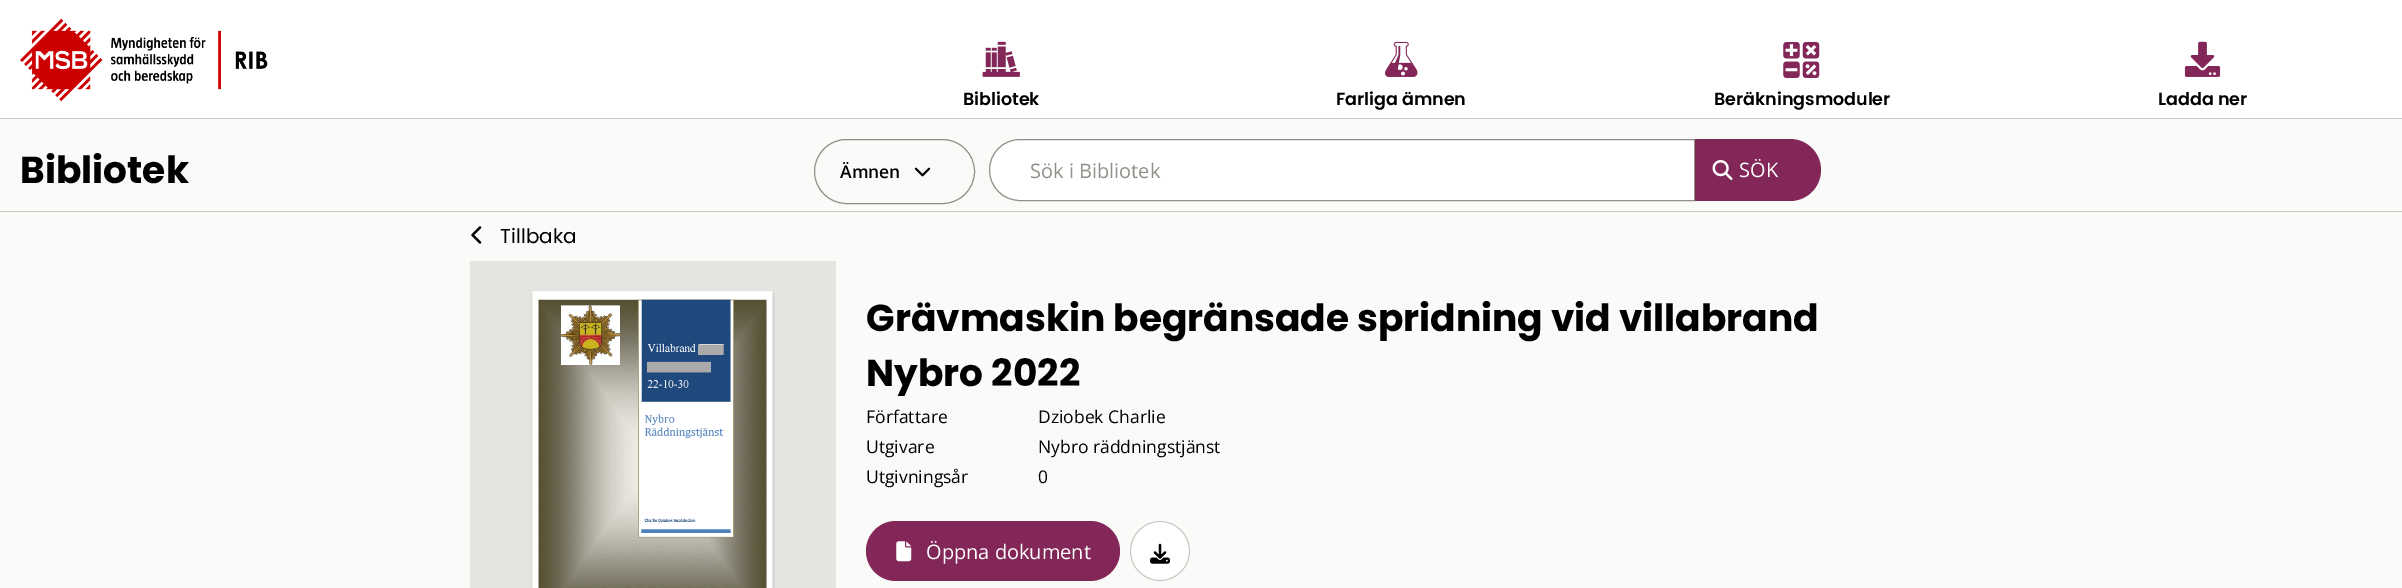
%!PS-Adobe-3.0
%%BoundingBox: 0 0 2402 588
%%LanguageLevel: 3
%%Pages: 1
%%EndComments
%%BeginProlog
/setink { 3 { 255 div 3 1 roll } repeat setrgbcolor } def
/usefont { [ exch dup neg 0 0 3 -1 roll 0 0 ] selectfont } def
/drawtext { setink usefont moveto show } def
/fillbox { setink rectfill } def
/setalpha { dup .setfillconstantalpha .setstrokeconstantalpha } def
/disc { newpath 0 360 arc closepath } def
/rrect { 5 dict begin { /r /h /w /y /x } { exch def } forall
  x r add y moveto x w add y 2 copy h add r arct x w add y h add x 1 index r arct
  x y h add x y r arct x y 2 copy exch w add exch r arct closepath end } def
/softshadow { 12 dict begin { /a /b /q /h /w /y /x } { exch def } forall gsave /was 0 def
  9 -2 -9 { dup b mul 4 div /e exch def 1 sub .425 mul 2.718 exch exp 1 add a .99 .min exch div /now exch def
    1 1 now sub 1 was sub div sub setalpha /was now def
    w h .min e 2 mul add 0 gt { x e sub y e sub w e 2 mul add h e 2 mul add
      q e add b .6 mul add w h .min 2 div e add .min 0 .max rrect fill } if } for grestore end } def
/drawimage { 5 dict begin { /h /w /y /x /name } { exch def } forall
  gsave x y translate w h scale
  w h 8 [w 0 0 h 0 0] name (r) file false 3 colorimage grestore end } def
%%EndProlog
%%BeginSetup
<< /PageSize [2402 588] /PageUsesTransparency true >> setpagedevice
%%EndSetup
%%Page: 1 1
0 .pushpdf14devicefilter
0 588 translate 1 -1 scale
4 setmiterlimit
0 0 2402 588 250 250 249 fillbox
0 0 2402 118 255 255 255 fillbox
0 118 2402 1 202 202 197 fillbox
(assets/img1.rgb) 20 18 248 84 drawimage
(assets/img2.rgb) 982 41 38 36 drawimage
(Bibliotek) 963 105 /Poppins-SemiBold 17.5 0 0 0 drawtext
(assets/img3.rgb) 1385 41 33 36 drawimage
(Farliga ämnen) 1336 105 /Poppins-SemiBold 17.5 0 0 0 drawtext
(assets/img4.rgb) 1783 42 37 36 drawimage
(Beräkningsmoduler) 1714 105 /Poppins-SemiBold 17.5 0 0 0 drawtext
(assets/img5.rgb) 2184 41 37 36 drawimage
(Ladda ner) 2158 105 /Poppins-SemiBold 17.5 0 0 0 drawtext
(Bibliotek) 20 183 /Poppins-Bold 37.5 0 0 0 drawtext
144 143 136 setink
814.5 139.5 160 64 32 rrect stroke
(Ämnen) 840 178 /OpenSans-SemiBold 17.5 0 0 0 drawtext
(assets/img6.rgb) 914 167 17 10 drawimage
255 255 255 setink
1020 139.5 moveto 1694.5 139.5 lineto 1694.5 200.5 lineto 1020 200.5 lineto 1003 200.5 989.5 187 989.5 170 curveto 989.5 153 1003 139.5 1020 139.5 curveto closepath gsave fill grestore
144 143 136 setink
stroke
(Sök i Bibliotek) 1030 178 /OpenSans-Regular 20 144 143 136 drawtext
130 39 87 setink
1695 139 moveto 1790 139 lineto 1807 139 1821 153 1821 170 curveto 1821 187 1807 201 1790 201 curveto 1695 201 lineto closepath fill
(assets/img7.rgb) 1712 160 21 20 drawimage
(SÖK) 1739 177 /OpenSans-Regular 20 255 255 255 drawtext
0 211 2402 1 202 202 197 fillbox
(assets/img8.rgb) 471 226 11 18 drawimage
(Tillbaka) 500 243 /Poppins-Regular 20 0 0 0 drawtext
470 261 366 327 228 228 225 fillbox
51 51 51 setink
533 294 240 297 0 1 0.35 softshadow
(assets/img9.rgb) 532 291 241 297 drawimage
(Grävmaskin begränsade spridning vid villabrand) 866 331 /Poppins-Bold 37.5 0 0 0 drawtext
(Nybro 2022) 866 386 /Poppins-Bold 37.5 0 0 0 drawtext
(Författare) 866 423 /OpenSans-Regular 17.5 0 0 0 drawtext
(Dziobek Charlie) 1038 423 /OpenSans-Regular 17.5 0 0 0 drawtext
(Utgivare) 866 453 /OpenSans-Regular 17.5 0 0 0 drawtext
(Nybro räddningstjänst) 1038 453 /OpenSans-Regular 17.5 0 0 0 drawtext
(Utgivningsår) 866 483 /OpenSans-Regular 17.5 0 0 0 drawtext
(0) 1038 483 /OpenSans-Regular 17.5 0 0 0 drawtext
130 39 87 setink
866 521 254 60 30 rrect fill
(assets/img10.rgb) 896 541 16 21 drawimage
(Öppna dokument) 926 559 /OpenSans-Regular 20 255 255 255 drawtext
1160 551 29.5 disc gsave fill grestore
202 202 197 setink
stroke
(assets/img11.rgb) 1150 543 20 21 drawimage
.poppdf14devicefilter showpage
%%EOF
